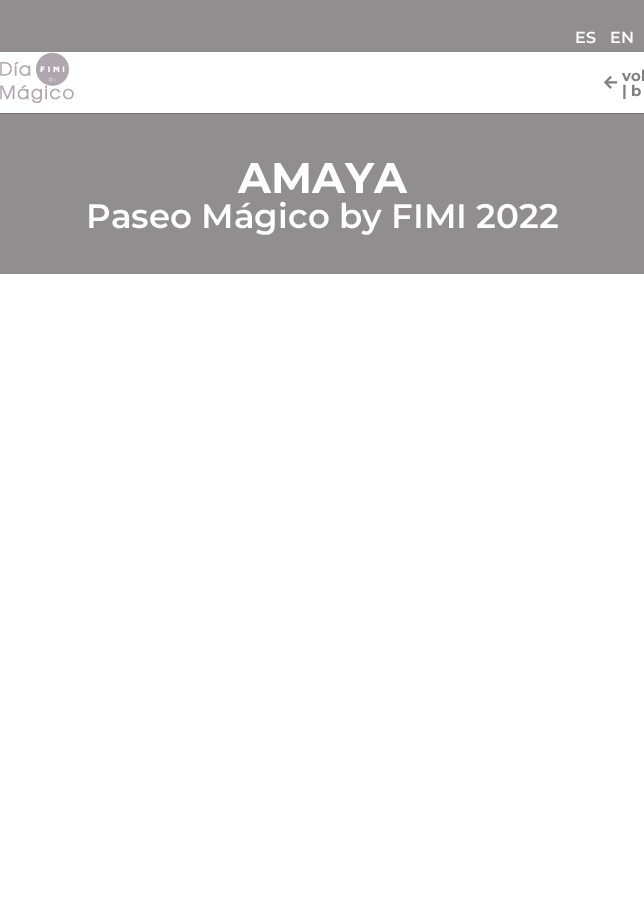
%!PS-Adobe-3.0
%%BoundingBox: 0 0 644 899
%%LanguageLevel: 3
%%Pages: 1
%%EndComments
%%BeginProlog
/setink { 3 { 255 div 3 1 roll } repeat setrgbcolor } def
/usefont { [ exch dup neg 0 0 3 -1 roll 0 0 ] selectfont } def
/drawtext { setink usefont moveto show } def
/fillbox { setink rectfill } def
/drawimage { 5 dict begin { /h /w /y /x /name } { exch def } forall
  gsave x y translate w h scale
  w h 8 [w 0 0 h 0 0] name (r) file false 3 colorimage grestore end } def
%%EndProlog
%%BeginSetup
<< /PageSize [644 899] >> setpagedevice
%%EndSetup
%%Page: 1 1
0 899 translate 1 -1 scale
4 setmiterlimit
0 0 644 899 255 255 255 fillbox
0 0 644 52 145 142 144 fillbox
(ES) 575 43 /Montserrat-SemiBold 16 255 255 255 drawtext
(EN) 610 43 /Montserrat-SemiBold 16 255 255 255 drawtext
0 113 644 1 112 115 114 fillbox
(assets/img1.rgb) 0 52 74 51 drawimage
(assets/img2.rgb) 604 76 14 13 drawimage
(vol) 622 81 /Montserrat-Bold 15 128 128 128 drawtext
(| b) 622 96 /Montserrat-Bold 15 128 128 128 drawtext
0 114 644 160 145 142 144 fillbox
(AMAYA) 238 193 /Montserrat-Bold 43 255 255 255 drawtext
(Paseo Mágico by FIMI 2022) 86 228 /Montserrat-SemiBold 34 255 255 255 drawtext
showpage
%%EOF
